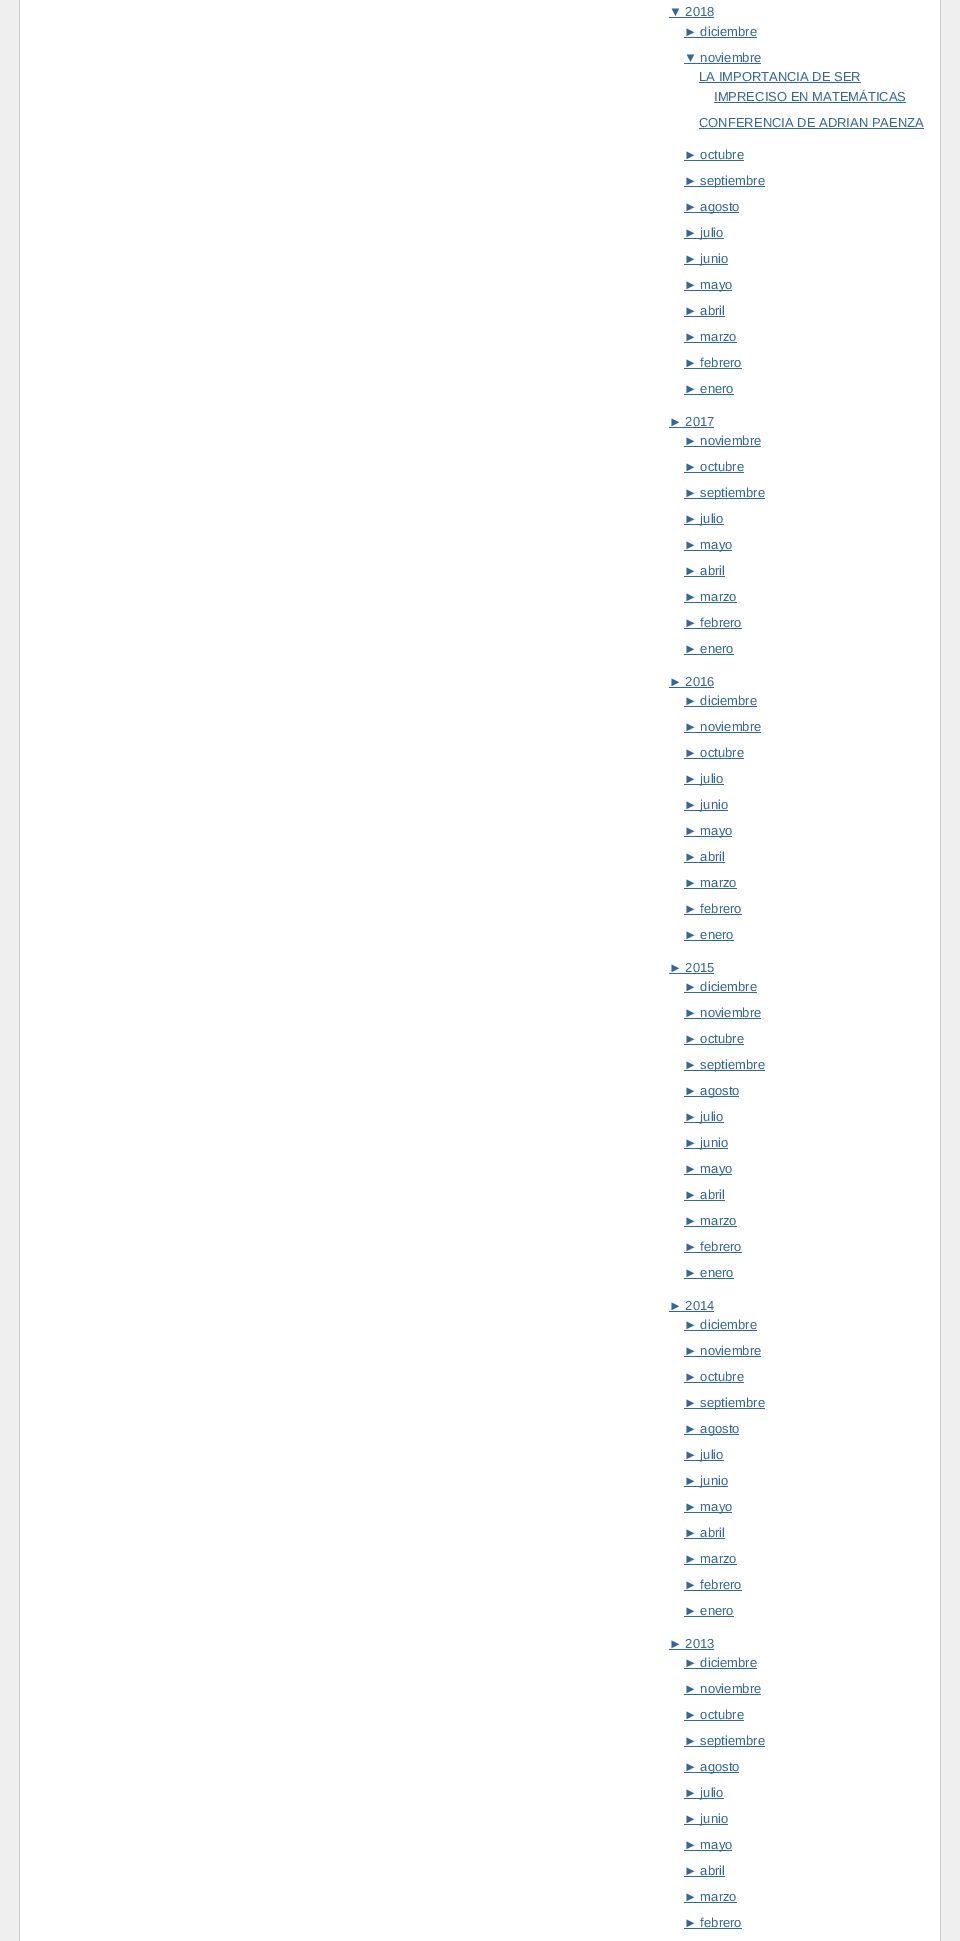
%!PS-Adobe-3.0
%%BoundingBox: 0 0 960 1941
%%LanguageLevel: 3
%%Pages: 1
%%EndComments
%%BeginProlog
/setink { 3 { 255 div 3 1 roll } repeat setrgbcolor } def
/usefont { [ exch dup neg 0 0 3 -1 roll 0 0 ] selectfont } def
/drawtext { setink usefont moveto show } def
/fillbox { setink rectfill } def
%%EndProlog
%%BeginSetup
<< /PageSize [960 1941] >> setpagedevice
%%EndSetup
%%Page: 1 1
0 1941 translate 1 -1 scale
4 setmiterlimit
0 0 960 1941 239 239 239 fillbox
20 0 920 1941 255 255 255 fillbox
940 0 1 1941 204 204 204 fillbox
19 0 1 1941 204 204 204 fillbox
(▼ 2018) 669 16 /LiberationSans-Regular 13 51 102 153 drawtext
669 17 45 1 51 102 153 fillbox
(► diciembre) 684 36 /LiberationSans-Regular 13 51 102 153 drawtext
684 37 73 1 51 102 153 fillbox
(▼ noviembre) 684 62 /LiberationSans-Regular 13 51 102 153 drawtext
684 63 77 1 51 102 153 fillbox
(LA IMPORTANCIA DE SER) 699 81 /LiberationSans-Regular 13 51 102 153 drawtext
699 82 162 1 51 102 153 fillbox
(IMPRECISO EN MATEMÁTICAS) 714 101 /LiberationSans-Regular 13 51 102 153 drawtext
714 102 192 1 51 102 153 fillbox
(CONFERENCIA DE ADRIAN PAENZA) 699 127 /LiberationSans-Regular 13 51 102 153 drawtext
699 128 225 1 51 102 153 fillbox
(► octubre) 684 159 /LiberationSans-Regular 13 51 102 153 drawtext
684 160 60 1 51 102 153 fillbox
684 186 81 1 51 102 153 fillbox
(► septiembre) 684 185 /LiberationSans-Regular 13 51 102 153 drawtext
684 212 55 1 51 102 153 fillbox
(► agosto) 684 211 /LiberationSans-Regular 13 51 102 153 drawtext
684 238 40 1 51 102 153 fillbox
(► julio) 684 237 /LiberationSans-Regular 13 51 102 153 drawtext
684 264 44 1 51 102 153 fillbox
(► junio) 684 263 /LiberationSans-Regular 13 51 102 153 drawtext
684 290 48 1 51 102 153 fillbox
(► mayo) 684 289 /LiberationSans-Regular 13 51 102 153 drawtext
(► abril) 684 315 /LiberationSans-Regular 13 51 102 153 drawtext
684 316 41 1 51 102 153 fillbox
(► marzo) 684 341 /LiberationSans-Regular 13 51 102 153 drawtext
684 342 53 1 51 102 153 fillbox
(► febrero) 684 367 /LiberationSans-Regular 13 51 102 153 drawtext
684 368 58 1 51 102 153 fillbox
(► enero) 684 393 /LiberationSans-Regular 13 51 102 153 drawtext
684 394 50 1 51 102 153 fillbox
(► 2017) 669 426 /LiberationSans-Regular 13 51 102 153 drawtext
669 427 45 1 51 102 153 fillbox
(► noviembre) 684 445 /LiberationSans-Regular 13 51 102 153 drawtext
684 446 77 1 51 102 153 fillbox
(► octubre) 684 471 /LiberationSans-Regular 13 51 102 153 drawtext
684 472 60 1 51 102 153 fillbox
684 498 81 1 51 102 153 fillbox
(► septiembre) 684 497 /LiberationSans-Regular 13 51 102 153 drawtext
684 524 40 1 51 102 153 fillbox
(► julio) 684 523 /LiberationSans-Regular 13 51 102 153 drawtext
684 550 48 1 51 102 153 fillbox
(► mayo) 684 549 /LiberationSans-Regular 13 51 102 153 drawtext
(► abril) 684 575 /LiberationSans-Regular 13 51 102 153 drawtext
684 576 41 1 51 102 153 fillbox
(► marzo) 684 601 /LiberationSans-Regular 13 51 102 153 drawtext
684 602 53 1 51 102 153 fillbox
(► febrero) 684 627 /LiberationSans-Regular 13 51 102 153 drawtext
684 628 58 1 51 102 153 fillbox
(► enero) 684 653 /LiberationSans-Regular 13 51 102 153 drawtext
684 654 50 1 51 102 153 fillbox
(► 2016) 669 686 /LiberationSans-Regular 13 51 102 153 drawtext
669 687 45 1 51 102 153 fillbox
(► diciembre) 684 705 /LiberationSans-Regular 13 51 102 153 drawtext
684 706 73 1 51 102 153 fillbox
(► noviembre) 684 731 /LiberationSans-Regular 13 51 102 153 drawtext
684 732 77 1 51 102 153 fillbox
(► octubre) 684 757 /LiberationSans-Regular 13 51 102 153 drawtext
684 758 60 1 51 102 153 fillbox
684 784 40 1 51 102 153 fillbox
(► julio) 684 783 /LiberationSans-Regular 13 51 102 153 drawtext
684 810 44 1 51 102 153 fillbox
(► junio) 684 809 /LiberationSans-Regular 13 51 102 153 drawtext
684 836 48 1 51 102 153 fillbox
(► mayo) 684 835 /LiberationSans-Regular 13 51 102 153 drawtext
(► abril) 684 861 /LiberationSans-Regular 13 51 102 153 drawtext
684 862 41 1 51 102 153 fillbox
(► marzo) 684 887 /LiberationSans-Regular 13 51 102 153 drawtext
684 888 53 1 51 102 153 fillbox
(► febrero) 684 913 /LiberationSans-Regular 13 51 102 153 drawtext
684 914 58 1 51 102 153 fillbox
(► enero) 684 939 /LiberationSans-Regular 13 51 102 153 drawtext
684 940 50 1 51 102 153 fillbox
(► 2015) 669 972 /LiberationSans-Regular 13 51 102 153 drawtext
669 973 45 1 51 102 153 fillbox
(► diciembre) 684 991 /LiberationSans-Regular 13 51 102 153 drawtext
684 992 73 1 51 102 153 fillbox
(► noviembre) 684 1017 /LiberationSans-Regular 13 51 102 153 drawtext
684 1018 77 1 51 102 153 fillbox
(► octubre) 684 1043 /LiberationSans-Regular 13 51 102 153 drawtext
684 1044 60 1 51 102 153 fillbox
684 1070 81 1 51 102 153 fillbox
(► septiembre) 684 1069 /LiberationSans-Regular 13 51 102 153 drawtext
684 1096 55 1 51 102 153 fillbox
(► agosto) 684 1095 /LiberationSans-Regular 13 51 102 153 drawtext
684 1122 40 1 51 102 153 fillbox
(► julio) 684 1121 /LiberationSans-Regular 13 51 102 153 drawtext
684 1148 44 1 51 102 153 fillbox
(► junio) 684 1147 /LiberationSans-Regular 13 51 102 153 drawtext
684 1174 48 1 51 102 153 fillbox
(► mayo) 684 1173 /LiberationSans-Regular 13 51 102 153 drawtext
(► abril) 684 1199 /LiberationSans-Regular 13 51 102 153 drawtext
684 1200 41 1 51 102 153 fillbox
(► marzo) 684 1225 /LiberationSans-Regular 13 51 102 153 drawtext
684 1226 53 1 51 102 153 fillbox
(► febrero) 684 1251 /LiberationSans-Regular 13 51 102 153 drawtext
684 1252 58 1 51 102 153 fillbox
(► enero) 684 1277 /LiberationSans-Regular 13 51 102 153 drawtext
684 1278 50 1 51 102 153 fillbox
(► 2014) 669 1310 /LiberationSans-Regular 13 51 102 153 drawtext
669 1311 45 1 51 102 153 fillbox
(► diciembre) 684 1329 /LiberationSans-Regular 13 51 102 153 drawtext
684 1330 73 1 51 102 153 fillbox
(► noviembre) 684 1355 /LiberationSans-Regular 13 51 102 153 drawtext
684 1356 77 1 51 102 153 fillbox
(► octubre) 684 1381 /LiberationSans-Regular 13 51 102 153 drawtext
684 1382 60 1 51 102 153 fillbox
684 1408 81 1 51 102 153 fillbox
(► septiembre) 684 1407 /LiberationSans-Regular 13 51 102 153 drawtext
684 1434 55 1 51 102 153 fillbox
(► agosto) 684 1433 /LiberationSans-Regular 13 51 102 153 drawtext
684 1460 40 1 51 102 153 fillbox
(► julio) 684 1459 /LiberationSans-Regular 13 51 102 153 drawtext
684 1486 44 1 51 102 153 fillbox
(► junio) 684 1485 /LiberationSans-Regular 13 51 102 153 drawtext
684 1512 48 1 51 102 153 fillbox
(► mayo) 684 1511 /LiberationSans-Regular 13 51 102 153 drawtext
(► abril) 684 1537 /LiberationSans-Regular 13 51 102 153 drawtext
684 1538 41 1 51 102 153 fillbox
(► marzo) 684 1563 /LiberationSans-Regular 13 51 102 153 drawtext
684 1564 53 1 51 102 153 fillbox
(► febrero) 684 1589 /LiberationSans-Regular 13 51 102 153 drawtext
684 1590 58 1 51 102 153 fillbox
(► enero) 684 1615 /LiberationSans-Regular 13 51 102 153 drawtext
684 1616 50 1 51 102 153 fillbox
(► 2013) 669 1648 /LiberationSans-Regular 13 51 102 153 drawtext
669 1649 45 1 51 102 153 fillbox
(► diciembre) 684 1667 /LiberationSans-Regular 13 51 102 153 drawtext
684 1668 73 1 51 102 153 fillbox
(► noviembre) 684 1693 /LiberationSans-Regular 13 51 102 153 drawtext
684 1694 77 1 51 102 153 fillbox
(► octubre) 684 1719 /LiberationSans-Regular 13 51 102 153 drawtext
684 1720 60 1 51 102 153 fillbox
684 1746 81 1 51 102 153 fillbox
(► septiembre) 684 1745 /LiberationSans-Regular 13 51 102 153 drawtext
684 1772 55 1 51 102 153 fillbox
(► agosto) 684 1771 /LiberationSans-Regular 13 51 102 153 drawtext
684 1798 40 1 51 102 153 fillbox
(► julio) 684 1797 /LiberationSans-Regular 13 51 102 153 drawtext
684 1824 44 1 51 102 153 fillbox
(► junio) 684 1823 /LiberationSans-Regular 13 51 102 153 drawtext
684 1850 48 1 51 102 153 fillbox
(► mayo) 684 1849 /LiberationSans-Regular 13 51 102 153 drawtext
(► abril) 684 1875 /LiberationSans-Regular 13 51 102 153 drawtext
684 1876 41 1 51 102 153 fillbox
(► marzo) 684 1901 /LiberationSans-Regular 13 51 102 153 drawtext
684 1902 53 1 51 102 153 fillbox
(► febrero) 684 1927 /LiberationSans-Regular 13 51 102 153 drawtext
684 1928 58 1 51 102 153 fillbox
showpage
%%EOF
